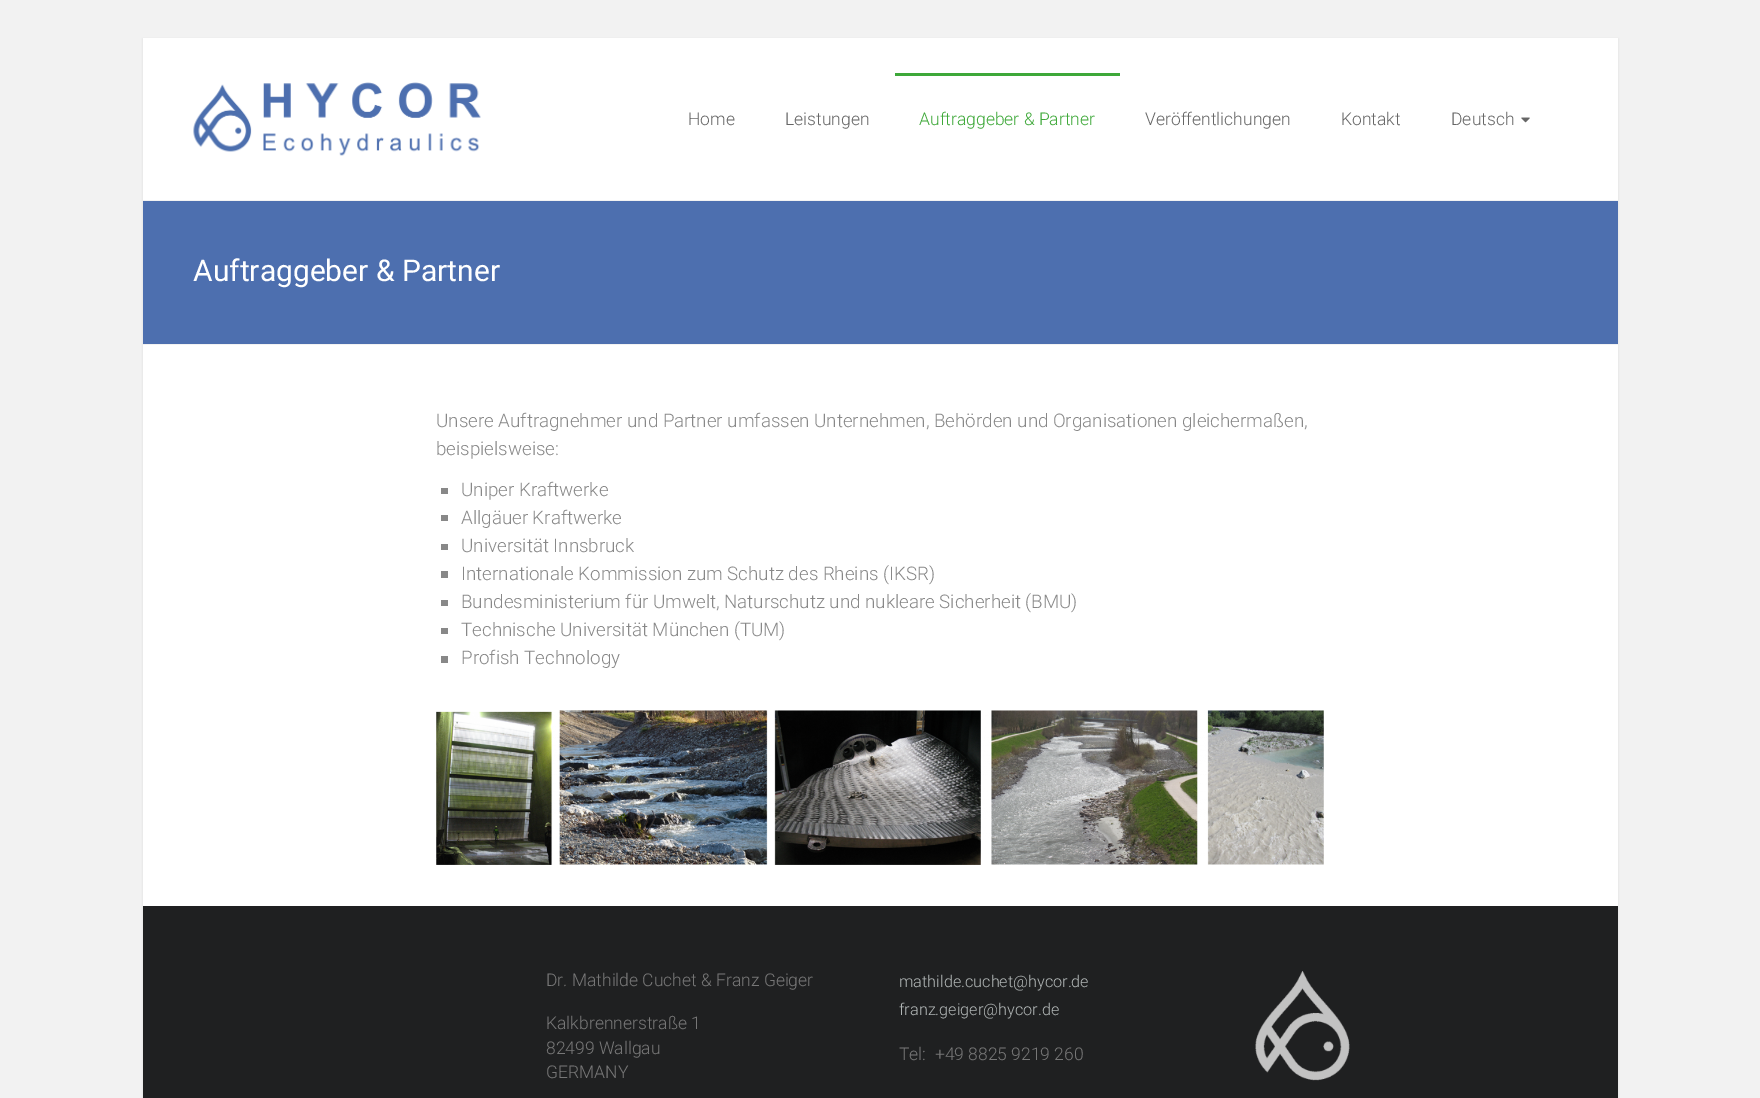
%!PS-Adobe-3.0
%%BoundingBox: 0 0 1760 1098
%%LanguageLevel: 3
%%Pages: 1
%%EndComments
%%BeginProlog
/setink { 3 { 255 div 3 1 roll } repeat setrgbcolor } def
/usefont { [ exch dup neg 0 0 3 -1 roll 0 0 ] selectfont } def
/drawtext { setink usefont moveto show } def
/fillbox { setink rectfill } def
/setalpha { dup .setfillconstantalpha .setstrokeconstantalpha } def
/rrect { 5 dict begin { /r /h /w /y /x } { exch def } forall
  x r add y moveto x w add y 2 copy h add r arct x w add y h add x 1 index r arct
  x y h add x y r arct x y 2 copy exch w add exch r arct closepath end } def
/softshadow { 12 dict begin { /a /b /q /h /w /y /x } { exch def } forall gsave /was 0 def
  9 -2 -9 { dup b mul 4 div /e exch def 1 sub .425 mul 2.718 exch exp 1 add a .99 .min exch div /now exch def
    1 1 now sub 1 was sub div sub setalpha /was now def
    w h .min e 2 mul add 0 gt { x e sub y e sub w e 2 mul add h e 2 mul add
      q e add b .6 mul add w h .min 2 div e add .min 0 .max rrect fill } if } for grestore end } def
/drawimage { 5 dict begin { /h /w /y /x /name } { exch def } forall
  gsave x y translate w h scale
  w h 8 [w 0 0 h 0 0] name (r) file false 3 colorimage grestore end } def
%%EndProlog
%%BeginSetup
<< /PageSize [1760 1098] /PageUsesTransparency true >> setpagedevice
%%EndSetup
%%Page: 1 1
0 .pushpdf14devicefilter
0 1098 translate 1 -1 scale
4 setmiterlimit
0 0 1760 1098 242 242 242 fillbox
0 0 0 setink
143 39 1475 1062 0 1 0.1 softshadow
143 38 1475 868 255 255 255 fillbox
143 200 1475 1 242 242 242 fillbox
(assets/img1.rgb) 193 82 288 74 drawimage
(Home) 688 125 /Roboto-Light 17.5 102 102 102 drawtext
(Leistungen) 785 125 /Roboto-Light 17.5 102 102 102 drawtext
895 73 225 3 62 168 57 fillbox
(Auftraggeber & Partner) 919 125 /Roboto-Light 17.5 62 168 57 drawtext
(Veröffentlichungen) 1145 125 /Roboto-Light 17.5 102 102 102 drawtext
(Kontakt) 1341 125 /Roboto-Light 17.5 102 102 102 drawtext
(Deutsch) 1451 125 /Roboto-Light 17.5 102 102 102 drawtext
(assets/img2.rgb) 1521 117 9 6 drawimage
143 201 1475 143 77 111 175 fillbox
143 344 1475 1 242 242 242 fillbox
(Auftraggeber & Partner) 193 281 /Roboto-Regular 30 255 255 255 drawtext
(Unsere Auftragnehmer und Partner umfassen Unternehmen, Behörden und Organisationen gleichermaßen,) 436 427 /Roboto-Light 18.75 136 136 136 drawtext
(beispielsweise:) 436 455 /Roboto-Light 18.75 136 136 136 drawtext
441 488 7 6 136 136 136 fillbox
(Uniper Kraftwerke) 461 496 /Roboto-Light 18.75 136 136 136 drawtext
441 515 7 6 136 136 136 fillbox
(Allgäuer Kraftwerke) 461 524 /Roboto-Light 18.75 136 136 136 drawtext
441 544 7 6 136 136 136 fillbox
(Universität Innsbruck) 461 552 /Roboto-Light 18.75 136 136 136 drawtext
441 571 7 7 136 136 136 fillbox
(Internationale Kommission zum Schutz des Rheins \(IKSR\)) 461 580 /Roboto-Light 18.75 136 136 136 drawtext
441 600 7 6 136 136 136 fillbox
(Bundesministerium für Umwelt, Naturschutz und nukleare Sicherheit \(BMU\)) 461 608 /Roboto-Light 18.75 136 136 136 drawtext
441 628 7 6 136 136 136 fillbox
(Technische Universität München \(TUM\)) 461 636 /Roboto-Light 18.75 136 136 136 drawtext
441 656 7 7 136 136 136 fillbox
(Profish Technology) 461 664 /Roboto-Light 18.75 136 136 136 drawtext
(assets/img3.rgb) 436 710 888 155 drawimage
143 906 1475 192 31 32 33 fillbox
(Dr. Mathilde Cuchet & Franz Geiger) 546 986 /Roboto-Light 17.5 119 119 119 drawtext
(Kalkbrennerstraße 1) 546 1029 /Roboto-Light 17.5 119 119 119 drawtext
(82499 Wallgau) 546 1054 /Roboto-Light 17.5 119 119 119 drawtext
(GERMANY) 546 1078 /Roboto-Light 17.5 119 119 119 drawtext
(mathilde.cuchet@hycor.de) 899 987 /Roboto-Light 16.25 177 182 182 drawtext
(franz.geiger@hycor.de) 899 1015 /Roboto-Light 16.25 177 182 182 drawtext
(Tel:  +49 8825 9219 260) 899 1060 /Roboto-Light 17.5 119 119 119 drawtext
(assets/img4.rgb) 1255 970 95 111 drawimage
.poppdf14devicefilter showpage
%%EOF
